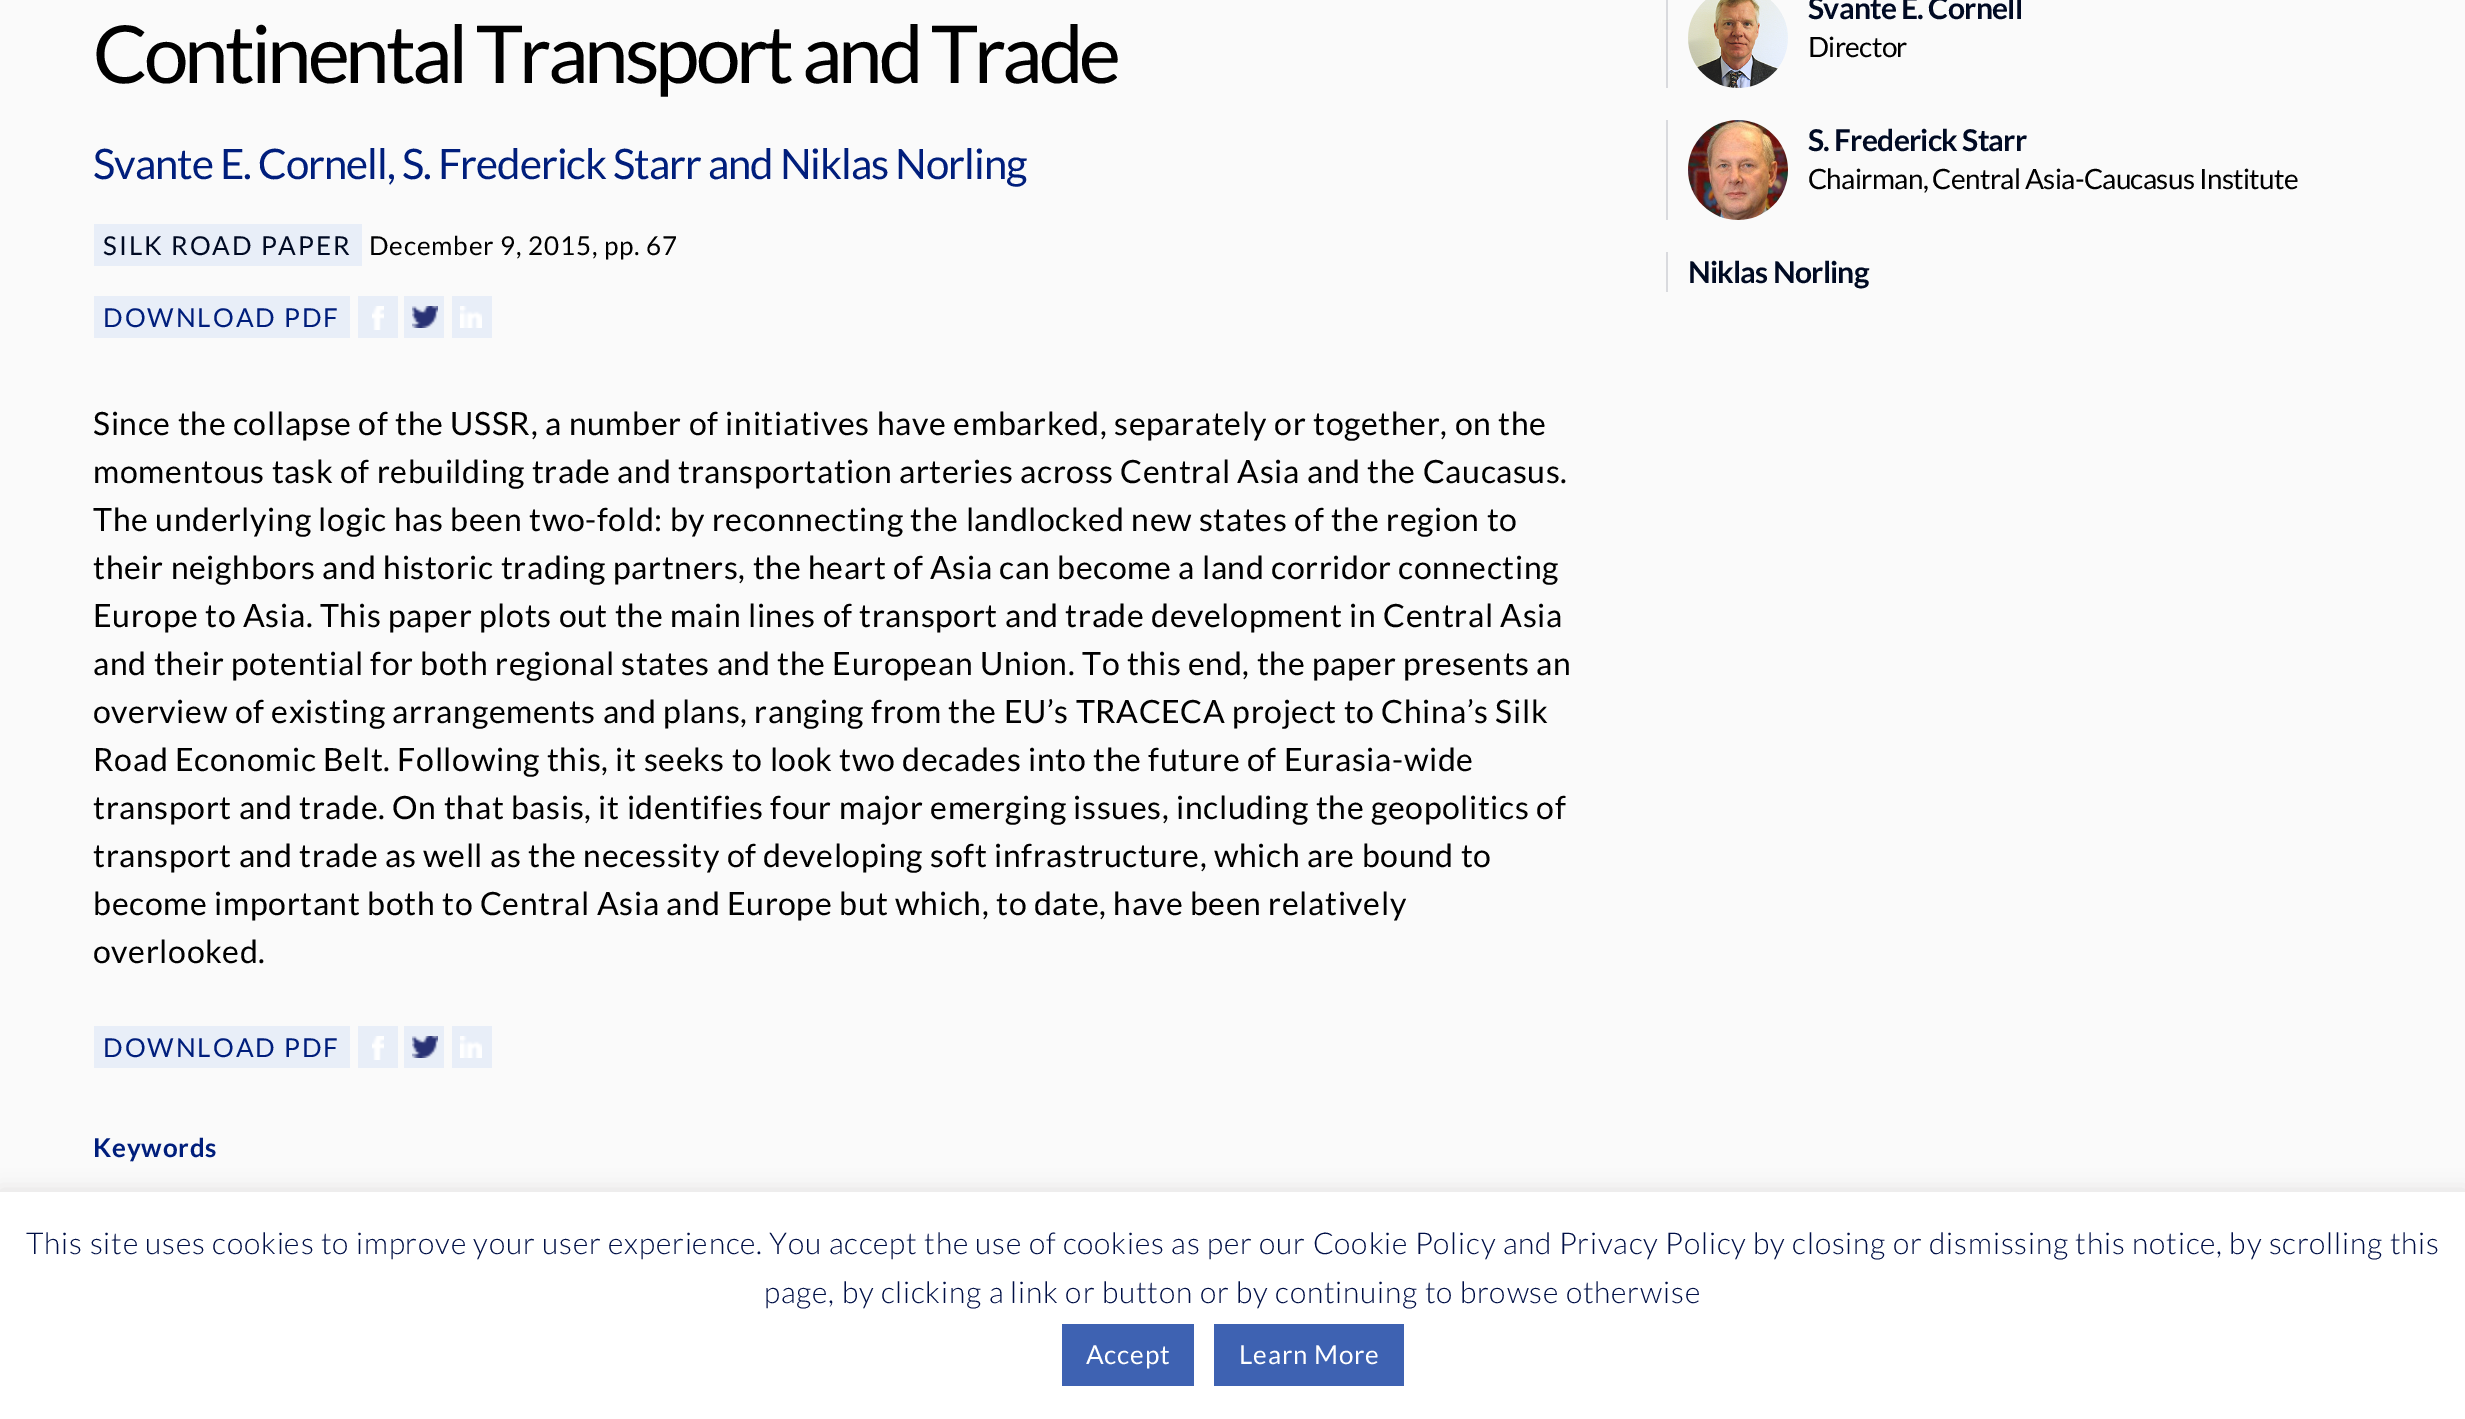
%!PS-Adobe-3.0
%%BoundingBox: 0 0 2465 1419
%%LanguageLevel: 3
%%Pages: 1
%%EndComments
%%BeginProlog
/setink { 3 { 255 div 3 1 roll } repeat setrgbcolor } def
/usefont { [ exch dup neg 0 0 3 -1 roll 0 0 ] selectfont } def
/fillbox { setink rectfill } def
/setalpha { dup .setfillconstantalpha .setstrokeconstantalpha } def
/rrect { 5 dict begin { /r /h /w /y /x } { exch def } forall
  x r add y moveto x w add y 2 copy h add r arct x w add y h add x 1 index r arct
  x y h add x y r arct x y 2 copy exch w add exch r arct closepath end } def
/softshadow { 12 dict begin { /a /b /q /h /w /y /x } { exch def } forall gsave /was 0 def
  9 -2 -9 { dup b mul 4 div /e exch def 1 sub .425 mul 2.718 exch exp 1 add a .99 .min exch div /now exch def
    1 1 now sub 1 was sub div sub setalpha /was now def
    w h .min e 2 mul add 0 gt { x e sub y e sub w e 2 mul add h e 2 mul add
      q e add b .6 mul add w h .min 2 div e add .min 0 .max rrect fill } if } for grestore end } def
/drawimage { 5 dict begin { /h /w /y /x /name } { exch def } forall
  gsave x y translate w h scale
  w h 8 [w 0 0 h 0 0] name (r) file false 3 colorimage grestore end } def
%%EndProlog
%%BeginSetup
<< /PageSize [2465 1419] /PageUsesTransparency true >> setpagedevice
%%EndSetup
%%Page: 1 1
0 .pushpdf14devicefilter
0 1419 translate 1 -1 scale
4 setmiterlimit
0 0 2465 1419 250 250 250 fillbox
/Lato-Regular 80 usefont
0 0 0 setink
93 83 moveto -4 0 (Continental Transport and Trade) ashow
/Lato-Regular 42 usefont
0 30 124 setink
93 179 moveto -1.05 0 (Svante E. Cornell, S. Frederick Starr and Niklas Norling) ashow
94 224 268 42 232 238 248 fillbox
/Lato-Regular 26 usefont
0 10 35 setink
103 255 moveto 2 0 (SILK ROAD PAPER) ashow
0 0 0 setink
369 255 moveto 0.8 0 (December 9, 2015, pp. 67) ashow
94 296 256 42 232 238 248 fillbox
0 30 124 setink
103 327 moveto 2 0 (DOWNLOAD PDF) ashow
358 296 40 42 232 238 248 fillbox
(assets/img1.rgb) 372 306 12 24 drawimage
404 296 40 42 232 238 248 fillbox
(assets/img2.rgb) 412 306 26 22 drawimage
452 296 40 42 232 238 248 fillbox
(assets/img3.rgb) 460 306 22 22 drawimage
/Lato-Regular 32 usefont
0 0 0 setink
93 435 moveto 0.64 0 (Since the collapse of the USSR, a number of initiatives have embarked, separately or together, on the) ashow
93 483 moveto 0.64 0 (momentous task of rebuilding trade and transportation arteries across Central Asia and the Caucasus.) ashow
93 531 moveto 0.64 0 (The underlying logic has been two-fold: by reconnecting the landlocked new states of the region to) ashow
93 579 moveto 0.64 0 (their neighbors and historic trading partners, the heart of Asia can become a land corridor connecting) ashow
93 627 moveto 0.64 0 (Europe to Asia. This paper plots out the main lines of transport and trade development in Central Asia) ashow
93 675 moveto 0.64 0 (and their potential for both regional states and the European Union. To this end, the paper presents an) ashow
93 723 moveto 0.64 0 (overview of existing arrangements and plans, ranging from the EU’s TRACECA project to China’s Silk) ashow
93 771 moveto 0.64 0 (Road Economic Belt. Following this, it seeks to look two decades into the future of Eurasia-wide) ashow
93 819 moveto 0.64 0 (transport and trade. On that basis, it identifies four major emerging issues, including the geopolitics of) ashow
93 867 moveto 0.64 0 (transport and trade as well as the necessity of developing soft infrastructure, which are bound to) ashow
93 915 moveto 0.64 0 (become important both to Central Asia and Europe but which, to date, have been relatively) ashow
93 963 moveto 0.64 0 (overlooked.) ashow
94 1026 256 42 232 238 248 fillbox
/Lato-Regular 26 usefont
0 30 124 setink
103 1057 moveto 2 0 (DOWNLOAD PDF) ashow
358 1026 40 42 232 238 248 fillbox
(assets/img1.rgb) 372 1036 12 24 drawimage
404 1026 40 42 232 238 248 fillbox
(assets/img2.rgb) 412 1036 26 22 drawimage
452 1026 40 42 232 238 248 fillbox
(assets/img3.rgb) 460 1036 22 22 drawimage
/Lato-Bold 26 usefont
0 30 124 setink
93 1157 moveto 0.8 0 (Keywords) ashow
1666 0 2 88 217 218 222 fillbox
(assets/img4.rgb) 1688 0 100 88 drawimage
/Lato-Bold 30 usefont
0 10 35 setink
1808 19 moveto -0.75 0 (Svante E. Cornell) ashow
/Lato-Regular 28 usefont
0 0 0 setink
1808 57 moveto -0.7 0 (Director) ashow
1666 120 2 100 217 218 222 fillbox
(assets/img5.rgb) 1688 120 100 100 drawimage
/Lato-Bold 30 usefont
0 10 35 setink
1808 151 moveto -0.75 0 (S. Frederick Starr) ashow
/Lato-Regular 28 usefont
0 0 0 setink
1808 189 moveto -0.7 0 (Chairman, Central Asia-Caucasus Institute) ashow
1666 252 2 40 217 218 222 fillbox
/Lato-Bold 30 usefont
0 10 35 setink
1688 283 moveto -0.75 0 (Niklas Norling) ashow
172 171 171 setink
0 1190 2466 228 0 10 0.3 softshadow
0 1192 2465 227 255 255 255 fillbox
/Lato-Light 30 usefont
0 15 70 setink
26 1254 moveto 0.8 0 (This site uses cookies to improve your user experience. You accept the use of cookies as per our Cookie Policy and Privacy Policy by closing or dismissing this notice, by scrolling this) ashow
764 1303 moveto 0.8 0 (page, by clicking a link or button or by continuing to browse otherwise) ashow
1062 1324 132 62 62 98 178 fillbox
/Lato-Regular 26 usefont
255 255 255 setink
1086 1364 moveto 0.8 0 (Accept) ashow
1214 1324 190 62 62 98 178 fillbox
255 255 255 setink
1239 1364 moveto 0.8 0 (Learn More) ashow
.poppdf14devicefilter showpage
%%EOF
